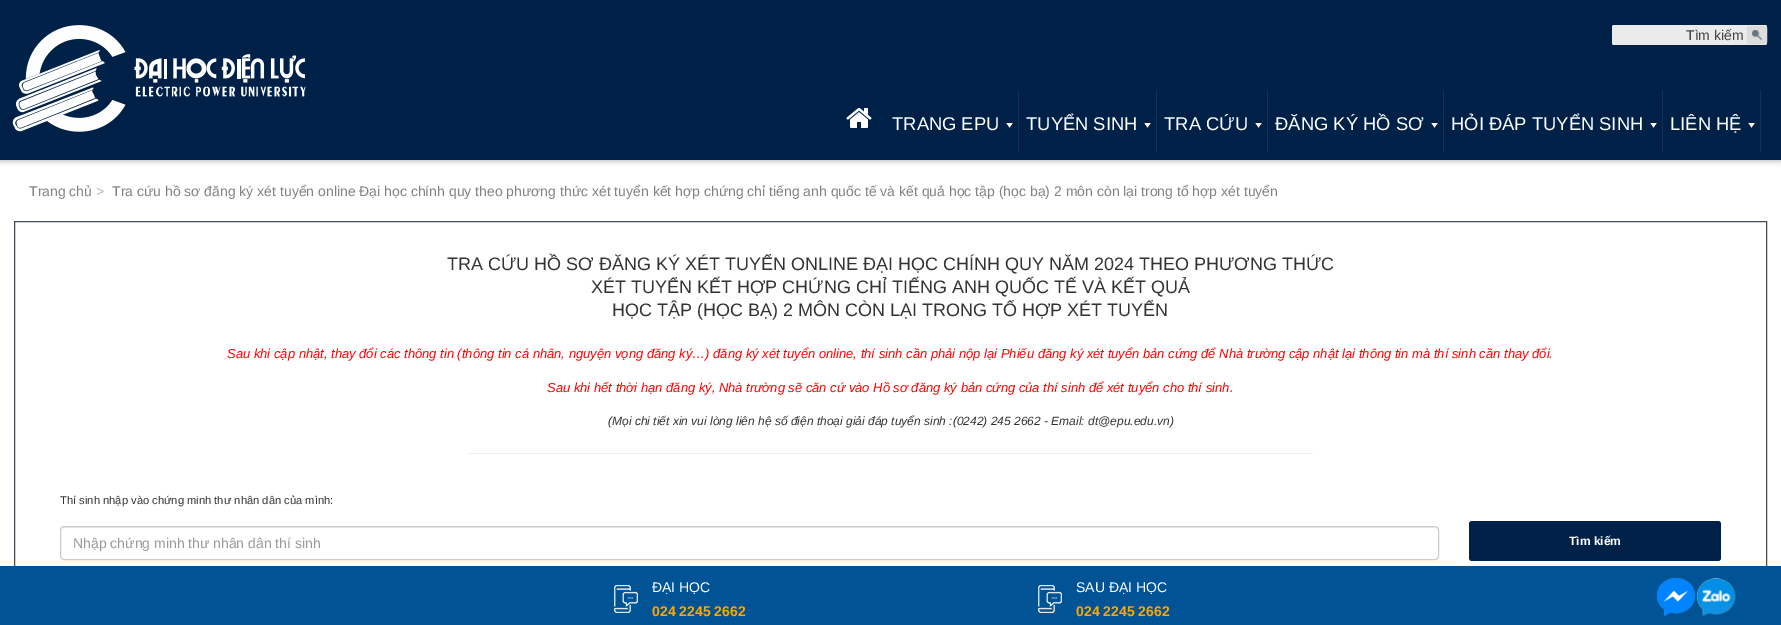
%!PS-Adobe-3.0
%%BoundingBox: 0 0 1781 625
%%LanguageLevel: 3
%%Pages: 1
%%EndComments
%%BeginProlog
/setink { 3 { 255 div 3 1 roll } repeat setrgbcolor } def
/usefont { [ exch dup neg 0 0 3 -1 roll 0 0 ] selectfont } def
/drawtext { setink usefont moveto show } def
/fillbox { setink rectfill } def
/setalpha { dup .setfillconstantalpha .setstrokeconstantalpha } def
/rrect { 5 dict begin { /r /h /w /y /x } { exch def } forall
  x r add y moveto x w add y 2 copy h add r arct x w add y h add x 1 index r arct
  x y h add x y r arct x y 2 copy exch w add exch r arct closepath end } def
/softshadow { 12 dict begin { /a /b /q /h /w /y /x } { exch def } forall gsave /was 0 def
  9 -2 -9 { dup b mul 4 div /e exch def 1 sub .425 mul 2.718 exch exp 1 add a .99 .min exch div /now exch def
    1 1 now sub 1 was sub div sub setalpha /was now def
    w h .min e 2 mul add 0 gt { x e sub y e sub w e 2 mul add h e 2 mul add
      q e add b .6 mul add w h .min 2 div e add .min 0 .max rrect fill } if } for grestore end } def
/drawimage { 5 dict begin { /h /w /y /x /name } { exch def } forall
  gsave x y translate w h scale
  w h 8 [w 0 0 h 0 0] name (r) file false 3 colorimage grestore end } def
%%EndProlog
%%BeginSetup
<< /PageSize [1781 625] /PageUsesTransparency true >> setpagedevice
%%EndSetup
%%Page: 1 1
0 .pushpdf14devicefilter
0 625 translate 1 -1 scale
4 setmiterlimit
0 0 1781 625 255 255 255 fillbox
0 0 0 setink
0 1 1781 160 0 3 0.3 softshadow
0 0 1781 160 0 33 71 fillbox
(assets/img1.rgb) 12 25 294 107 drawimage
235 235 235 setink
1612 25 155 20 2 rrect fill
1612 25 134 20 3 rrect fill
(Tìm kiếm) 1686 40 /LiberationSans-Regular 14 67 67 67 drawtext
221 221 221 setink
1747 26 20 18 2 rrect fill
(assets/img2.rgb) 1751 29 12 11 drawimage
219 219 219 setink
1747.5 26.5 19 17 1.5 rrect stroke
(assets/img3.rgb) 846 108 26 20 drawimage
1018 90 1 62 18 49 84 fillbox
(assets/img4.rgb) 1006 123 7 6 drawimage
(TRANG EPU) 892 130 /LiberationSans-Regular 18.4 255 255 255 drawtext
1156 90 1 62 18 49 84 fillbox
(assets/img4.rgb) 1144 123 7 6 drawimage
(TUYỂN SINH) 1026 130 /LiberationSans-Regular 18.4 255 255 255 drawtext
1267 90 1 62 18 49 84 fillbox
(assets/img4.rgb) 1255 123 7 6 drawimage
(TRA CỨU) 1164 130 /LiberationSans-Regular 18.4 255 255 255 drawtext
1443 90 1 62 18 49 84 fillbox
(assets/img4.rgb) 1431 123 7 6 drawimage
(ĐĂNG KÝ HỒ SƠ) 1275 130 /LiberationSans-Regular 18.4 255 255 255 drawtext
1662 90 1 62 18 49 84 fillbox
(assets/img4.rgb) 1650 123 7 6 drawimage
(HỎI ĐÁP TUYỂN SINH) 1451 130 /LiberationSans-Regular 18.4 255 255 255 drawtext
1760 90 1 62 18 49 84 fillbox
(assets/img4.rgb) 1748 123 7 6 drawimage
(LIÊN HỆ) 1670 130 /LiberationSans-Regular 18.4 255 255 255 drawtext
(Trang chủ) 29 196 /LiberationSans-Regular 14 128 130 132 drawtext
(>) 96 196 /LiberationSans-Regular 14 180 181 182 drawtext
(Tra cứu hồ sơ đăng ký xét tuyển online Đại học chính quy theo phương thức xét tuyển kết hợp chứng chỉ tiếng anh quốc tế và kết quả học tập \(học bạ\) 2 môn còn lại trong tổ hợp xét tuyển) 112 196 /LiberationSans-Regular 14 128 130 132 drawtext
67 80 91 setink
14.5 221.5 1752 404 rectstroke
(TRA CỨU HỒ SƠ ĐĂNG KÝ XÉT TUYỂN ONLINE ĐẠI HỌC CHÍNH QUY NĂM 2024 THEO PHƯƠNG THỨC) 447 270 /LiberationSans-Regular 18 51 51 51 drawtext
(XÉT TUYỂN KẾT HỢP CHỨNG CHỈ TIẾNG ANH QUỐC TẾ VÀ KẾT QUẢ) 591 293 /LiberationSans-Regular 18 51 51 51 drawtext
(HỌC TẬP \(HỌC BẠ\) 2 MÔN CÒN LẠI TRONG TỔ HỢP XÉT TUYỂN) 612 316 /LiberationSans-Regular 18 51 51 51 drawtext
(Sau khi cập nhật, thay đổi các thông tin \(thông tin cá nhân, nguyện vọng đăng ký…\) đăng ký xét tuyển online, thí sinh cần phải nộp lại Phiếu đăng ký xét tuyển bản cứng để Nhà trường cập nhật lại thông tin mà thí sinh cần thay đổi.) 227 358 /LiberationSans-Italic 13 255 0 0 drawtext
(Sau khi hết thời hạn đăng ký, Nhà trường sẽ căn cứ vào Hồ sơ đăng ký bản cứng của thí sinh để xét tuyển cho thí sinh.) 547 392 /LiberationSans-Italic 13 255 0 0 drawtext
(\(Mọi chi tiết xin vui lòng liên hệ số điện thoại giải đáp tuyển sinh :\(0242\) 245 2662 - Email: dt@epu.edu.vn\)) 608 425 /LiberationSans-Italic 12 51 51 51 drawtext
468 453 845 1 238 238 238 fillbox
(Thí sinh nhập vào chứng minh thư nhân dân của mình:) 60 504 /LiberationSans-Regular 11.2 51 51 51 drawtext
236 236 236 setink
64 528 moveto 1435 528 lineto 1437 528 1438 529 1438 531 curveto 1438 530 lineto 1438 528 1437 527 1435 527 curveto 64 527 lineto 62 527 61 528 61 530 curveto 61 531 lineto 61 529 62 528 64 528 curveto closepath fill
204 204 204 setink
60.5 526.5 1378 33 3.5 rrect stroke
(Nhập chứng minh thư nhân dân thí sinh) 73 548 /LiberationSans-Regular 14 153 153 153 drawtext
0 33 71 setink
1469 521 252 40 3 rrect fill
(Tìm kiếm) 1569 545 /LiberationSans-Bold 12 255 255 255 drawtext
0 566 1781 59 0 84 150 fillbox
(assets/img5.rgb) 614 585 24 28 drawimage
(ĐẠI HỌC) 652 592 /LiberationSans-Regular 14 255 255 255 drawtext
(024 2245 2662) 652 616 /LiberationSans-Bold 14 255 165 0 drawtext
(assets/img5.rgb) 1038 585 24 28 drawimage
(SAU ĐẠI HỌC) 1076 592 /LiberationSans-Regular 14 255 255 255 drawtext
(024 2245 2662) 1076 616 /LiberationSans-Bold 14 255 165 0 drawtext
(assets/img6.rgb) 1656 577 40 40 drawimage
(assets/img7.rgb) 1696 578 40 39 drawimage
.poppdf14devicefilter showpage
%%EOF
